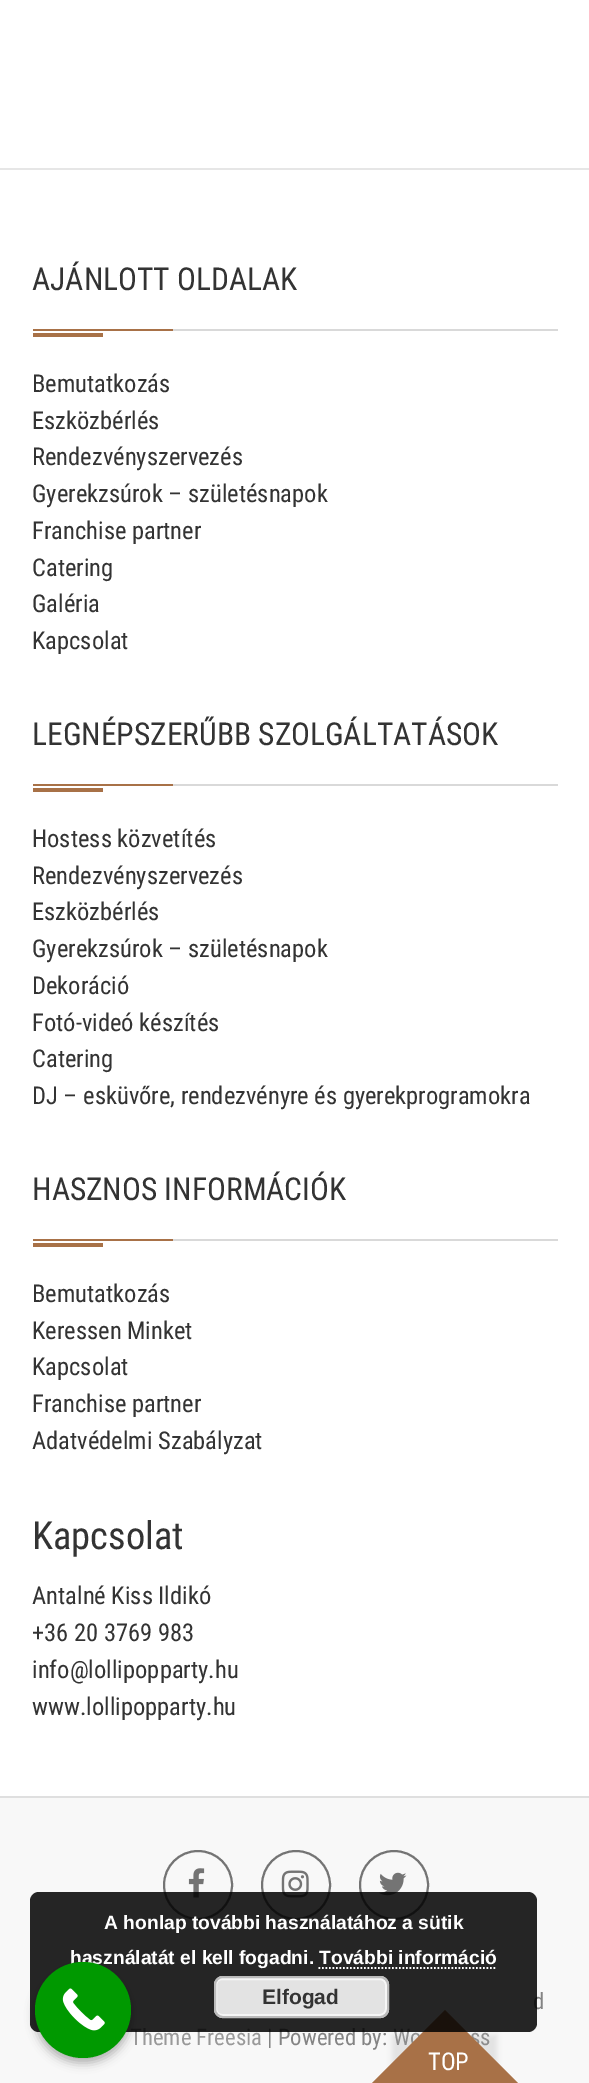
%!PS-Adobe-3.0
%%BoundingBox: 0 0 589 2083
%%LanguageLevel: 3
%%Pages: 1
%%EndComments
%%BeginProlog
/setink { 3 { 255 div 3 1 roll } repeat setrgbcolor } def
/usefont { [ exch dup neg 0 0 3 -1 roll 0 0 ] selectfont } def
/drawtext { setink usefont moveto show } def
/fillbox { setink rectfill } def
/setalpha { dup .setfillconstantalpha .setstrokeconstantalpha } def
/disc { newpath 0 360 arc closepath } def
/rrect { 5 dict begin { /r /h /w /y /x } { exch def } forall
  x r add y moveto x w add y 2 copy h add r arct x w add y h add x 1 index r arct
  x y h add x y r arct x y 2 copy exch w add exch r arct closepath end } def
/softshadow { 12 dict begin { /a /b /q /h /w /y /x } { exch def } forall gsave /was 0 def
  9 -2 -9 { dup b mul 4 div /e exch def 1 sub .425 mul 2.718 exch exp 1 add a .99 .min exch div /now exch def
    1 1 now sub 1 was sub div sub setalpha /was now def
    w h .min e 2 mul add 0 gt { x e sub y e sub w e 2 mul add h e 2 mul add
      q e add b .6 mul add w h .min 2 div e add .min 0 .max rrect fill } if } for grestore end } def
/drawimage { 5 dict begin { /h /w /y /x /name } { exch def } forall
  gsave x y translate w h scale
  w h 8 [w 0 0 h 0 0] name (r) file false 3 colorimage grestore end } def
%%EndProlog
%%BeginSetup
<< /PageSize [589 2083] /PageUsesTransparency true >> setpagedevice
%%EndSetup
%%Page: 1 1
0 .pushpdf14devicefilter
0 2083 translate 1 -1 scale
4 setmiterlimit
0 0 589 2083 255 255 255 fillbox
0 168 589 2 230 230 230 fillbox
173 329 385 2 217 217 217 fillbox
(AJÁNLOTT OLDALAK) 32 290 /RobotoCondensed-Regular 31.5 51 51 51 drawtext
33 329 140 2 168 113 71 fillbox
33 333 70 4 168 113 71 fillbox
(Bemutatkozás) 32 392 /RobotoCondensed-Regular 24.5 51 51 51 drawtext
(Eszközbérlés) 32 429 /RobotoCondensed-Regular 24.5 51 51 51 drawtext
(Rendezvényszervezés) 32 465 /RobotoCondensed-Regular 24.5 51 51 51 drawtext
(Gyerekzsúrok – születésnapok) 32 502 /RobotoCondensed-Regular 24.5 51 51 51 drawtext
(Franchise partner) 32 539 /RobotoCondensed-Regular 24.5 51 51 51 drawtext
(Catering) 32 576 /RobotoCondensed-Regular 24.5 51 51 51 drawtext
(Galéria) 32 612 /RobotoCondensed-Regular 24.5 51 51 51 drawtext
(Kapcsolat) 32 649 /RobotoCondensed-Regular 24.5 51 51 51 drawtext
173 784 385 2 217 217 217 fillbox
(LEGNÉPSZERŰBB SZOLGÁLTATÁSOK) 32 745 /RobotoCondensed-Regular 31.5 51 51 51 drawtext
33 784 140 2 168 113 71 fillbox
33 788 70 4 168 113 71 fillbox
(Hostess közvetítés) 32 847 /RobotoCondensed-Regular 24.5 51 51 51 drawtext
(Rendezvényszervezés) 32 884 /RobotoCondensed-Regular 24.5 51 51 51 drawtext
(Eszközbérlés) 32 920 /RobotoCondensed-Regular 24.5 51 51 51 drawtext
(Gyerekzsúrok – születésnapok) 32 957 /RobotoCondensed-Regular 24.5 51 51 51 drawtext
(Dekoráció) 32 994 /RobotoCondensed-Regular 24.5 51 51 51 drawtext
(Fotó-videó készítés) 32 1031 /RobotoCondensed-Regular 24.5 51 51 51 drawtext
(Catering) 32 1067 /RobotoCondensed-Regular 24.5 51 51 51 drawtext
(DJ – esküvőre, rendezvényre és gyerekprogramokra) 32 1104 /RobotoCondensed-Regular 24.5 51 51 51 drawtext
173 1239 385 2 217 217 217 fillbox
(HASZNOS INFORMÁCIÓK) 32 1200 /RobotoCondensed-Regular 31.5 51 51 51 drawtext
33 1239 140 2 168 113 71 fillbox
33 1243 70 4 168 113 71 fillbox
(Bemutatkozás) 32 1302 /RobotoCondensed-Regular 24.5 51 51 51 drawtext
(Keressen Minket) 32 1339 /RobotoCondensed-Regular 24.5 51 51 51 drawtext
(Kapcsolat) 32 1375 /RobotoCondensed-Regular 24.5 51 51 51 drawtext
(Franchise partner) 32 1412 /RobotoCondensed-Regular 24.5 51 51 51 drawtext
(Adatvédelmi Szabályzat) 32 1449 /RobotoCondensed-Regular 24.5 51 51 51 drawtext
(Kapcsolat) 32 1549 /RobotoCondensed-Regular 38.5 51 51 51 drawtext
(Antalné Kiss Ildikó) 32 1604 /RobotoCondensed-Regular 24.5 51 51 51 drawtext
(+36 20 3769 983) 32 1641 /RobotoCondensed-Regular 24.5 51 51 51 drawtext
(info@lollipopparty.hu) 32 1678 /RobotoCondensed-Regular 24.5 51 51 51 drawtext
(www.lollipopparty.hu) 32 1715 /RobotoCondensed-Regular 24.5 51 51 51 drawtext
0 1798 589 285 248 248 248 fillbox
0 1796 589 2 223 223 223 fillbox
116 116 116 setink
2 setlinewidth
198 1885 34 disc stroke
(assets/img1.rgb) 188 1868 17 30 drawimage
296 1885 34 disc stroke
(assets/img2.rgb) 281 1870 28 28 drawimage
394 1885 34 disc stroke
(assets/img3.rgb) 379 1872 28 24 drawimage
(d) 533 2009 /RobotoCondensed-Regular 22.75 132 132 132 drawtext
(Theme Freesia) 130 2045 /RobotoCondensed-Regular 22.75 153 153 153 drawtext
(| Powered by:) 267 2045 /RobotoCondensed-Regular 22.75 132 132 132 drawtext
(Wo) 393 2045 /RobotoCondensed-Regular 22.75 153 153 153 drawtext
(ss) 470 2045 /RobotoCondensed-Regular 22.75 153 153 153 drawtext
0 0 0 setink
392 2035 105 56 0 2.5 0.08 softshadow
168 113 71 setink
445 2010 moveto 519 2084 lineto 445 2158 lineto 371 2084 lineto closepath fill
(TOP) 428 2070 /RobotoCondensed-Regular 24.5 255 255 255 drawtext
0.85 setalpha
0 0 0 setink
30 1892 507 140 9 rrect fill
1 setalpha
(A honlap további használatához a sütik) 104 1929 /LiberationSans-Bold 19.25 255 255 255 drawtext
(használatát el kell fogadni. További információ) 70 1964 /LiberationSans-Bold 19.25 255 255 255 drawtext
1.8 setlinewidth
[1.75 1.75] 0 setdash
318.5 1968 moveto 497 1968 lineto stroke
227 227 227 setink
214 1976 175 42 9 rrect fill
246 246 246 setink
2 setlinewidth
[] 0 setdash
216 1979 170 36 6 rrect stroke
187 187 187 setink
215 1977 173 40 8 rrect stroke
(Elfogad) 262 2004 /LiberationSans-Bold 21 51 51 51 drawtext
0 0 0 setink
35 1967 96 96 48 5 0.3 softshadow
0 153 0 setink
83 2010 48 disc fill
(assets/img4.rgb) 62 1988 43 43 drawimage
.poppdf14devicefilter showpage
%%EOF
